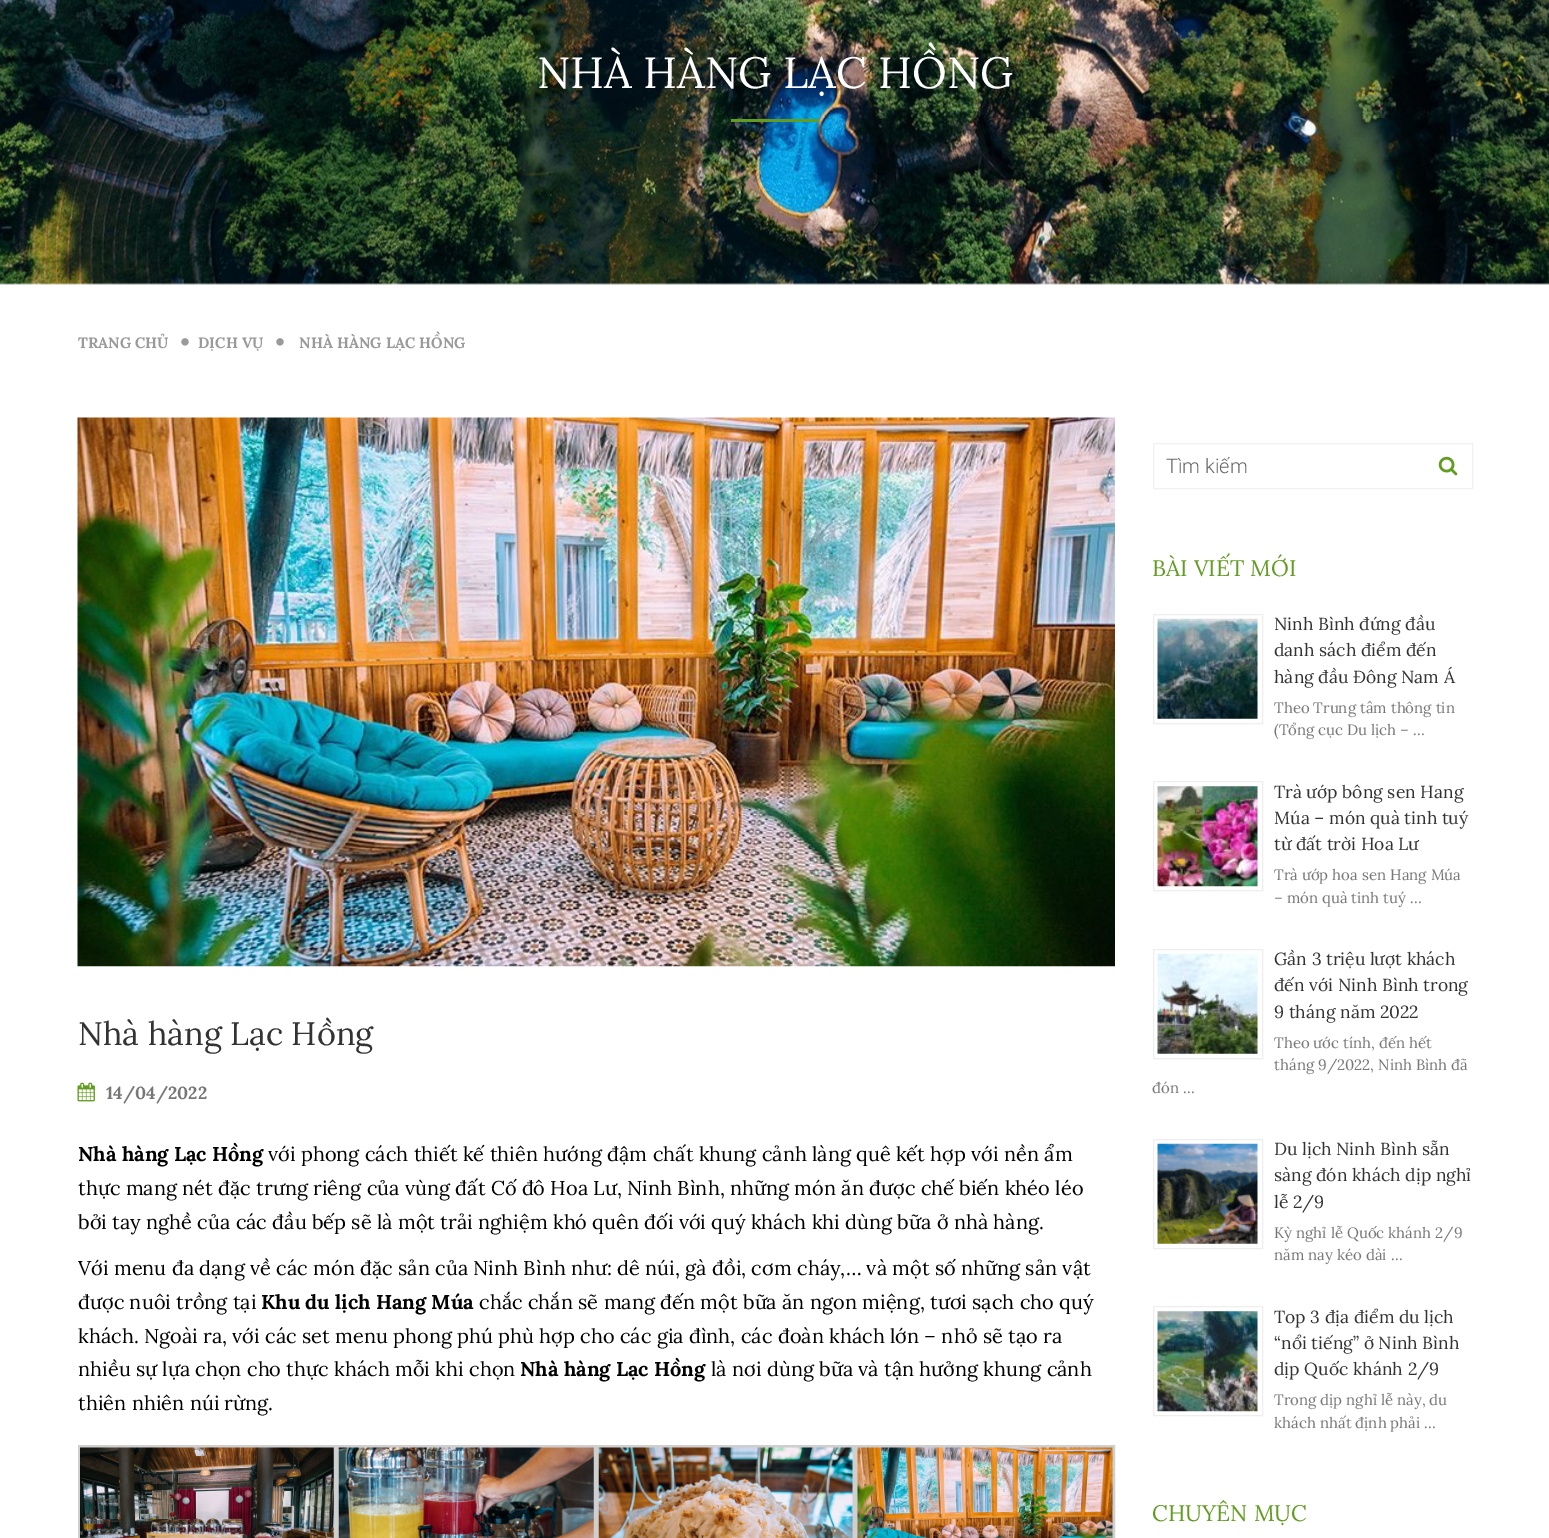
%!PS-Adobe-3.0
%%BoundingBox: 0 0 1549 1538
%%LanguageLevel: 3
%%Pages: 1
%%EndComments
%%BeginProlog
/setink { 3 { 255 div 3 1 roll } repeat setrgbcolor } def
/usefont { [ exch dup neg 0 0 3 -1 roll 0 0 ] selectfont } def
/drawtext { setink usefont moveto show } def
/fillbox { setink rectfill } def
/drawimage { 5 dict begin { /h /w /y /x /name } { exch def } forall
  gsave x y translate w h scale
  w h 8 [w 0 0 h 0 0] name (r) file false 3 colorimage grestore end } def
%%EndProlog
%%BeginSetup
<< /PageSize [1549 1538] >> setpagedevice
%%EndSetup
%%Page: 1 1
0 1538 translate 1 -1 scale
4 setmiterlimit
0 0 1549 1538 255 255 255 fillbox
0 283 1549 1 204 204 204 fillbox
(assets/img1.rgb) 0 0 1549 285 drawimage
(NHÀ HÀNG LẠC HỒNG) 537 88 /Lora-Regular 43.75 255 255 255 drawtext
731 119 88 3 98 156 34 fillbox
(TRANG CHỦ) 78 348 /Lora-Bold 15 154 154 154 drawtext
(assets/img2.rgb) 181 338 8 8 drawimage
(DỊCH VỤ) 198 348 /Lora-Bold 15 154 154 154 drawtext
(assets/img2.rgb) 276 338 8 8 drawimage
(NHÀ HÀNG LẠC HỒNG) 299 348 /Lora-Bold 15 154 154 154 drawtext
(assets/img3.rgb) 77 417 1038 550 drawimage
(Nhà hàng Lạc Hồng) 78 1045 /Lora-Regular 32.5 51 51 51 drawtext
(assets/img4.rgb) 77 1082 18 20 drawimage
(14/04/2022) 106 1099 /Lora-Bold 17.5 119 119 119 drawtext
(Nhà hàng Lạc Hồng) 78 1161 /Lora-Bold 20 0 0 0 drawtext
(với phong cách thiết kế thiên hướng đậm chất khung cảnh làng quê kết hợp với nền ẩm) 268 1161 /Lora-Regular 20 0 0 0 drawtext
(thực mang nét đặc trưng riêng của vùng đất Cố đô Hoa Lư, Ninh Bình, những món ăn được chế biến khéo léo) 78 1195 /Lora-Regular 20 0 0 0 drawtext
(bởi tay nghề của các đầu bếp sẽ là một trải nghiệm khó quên đối với quý khách khi dùng bữa ở nhà hàng.) 78 1229 /Lora-Regular 20 0 0 0 drawtext
(Với menu đa dạng về các món đặc sản của Ninh Bình như: dê núi, gà đồi, cơm cháy,… và một số những sản vật) 78 1275 /Lora-Regular 20 0 0 0 drawtext
(được nuôi trồng tại) 78 1309 /Lora-Regular 20 0 0 0 drawtext
(Khu du lịch Hang Múa) 261 1309 /Lora-Bold 20 0 0 0 drawtext
(chắc chắn sẽ mang đến một bữa ăn ngon miệng, tươi sạch cho quý) 479 1309 /Lora-Regular 20 0 0 0 drawtext
(khách. Ngoài ra, với các set menu phong phú phù hợp cho các gia đình, các đoàn khách lớn – nhỏ sẽ tạo ra) 78 1343 /Lora-Regular 20 0 0 0 drawtext
(nhiều sự lựa chọn cho thực khách mỗi khi chọn) 78 1376 /Lora-Regular 20 0 0 0 drawtext
(Nhà hàng Lạc Hồng) 520 1376 /Lora-Bold 20 0 0 0 drawtext
(là nơi dùng bữa và tận hưởng khung cảnh) 711 1376 /Lora-Regular 20 0 0 0 drawtext
(thiên nhiên núi rừng.) 78 1410 /Lora-Regular 20 0 0 0 drawtext
207 207 207 setink
3 setlinewidth
79.5 1446.5 255 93 rectstroke
(assets/img5.rgb) 80 1447 254 91 drawimage
337.5 1446.5 257 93 rectstroke
(assets/img6.rgb) 338 1447 256 91 drawimage
597.5 1446.5 256 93 rectstroke
(assets/img7.rgb) 598 1447 255 91 drawimage
856.5 1446.5 257 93 rectstroke
(assets/img8.rgb) 857 1447 256 91 drawimage
241 241 241 setink
1 setlinewidth
1153.5 443.5 319 45 rectstroke
(Tìm kiếm) 1166 473 /Roboto-Light 20 102 102 102 drawtext
(assets/img9.rgb) 1438 456 20 20 drawimage
(BÀI VIẾT MỚI) 1152 576 /Lora-Regular 22.5 98 156 34 drawtext
238 238 238 setink
1153.5 614.5 109 109 rectstroke
(assets/img10.rgb) 1157 618 101 101 drawimage
(Ninh Bình đứng đầu) 1274 630 /Lora-Regular 17.5 51 51 51 drawtext
(danh sách điểm đến) 1274 656 /Lora-Regular 17.5 51 51 51 drawtext
(hàng đầu Đông Nam Á) 1274 683 /Lora-Regular 17.5 51 51 51 drawtext
(Theo Trung tâm thông tin) 1274 713 /Lora-Regular 15 119 119 119 drawtext
(\(Tổng cục Du lịch – …) 1274 735 /Lora-Regular 15 119 119 119 drawtext
238 238 238 setink
1153.5 781.5 109 109 rectstroke
(assets/img11.rgb) 1157 786 101 101 drawimage
(Trà ướp bông sen Hang) 1274 798 /Lora-Regular 17.5 51 51 51 drawtext
(Múa – món quà tinh tuý) 1274 824 /Lora-Regular 17.5 51 51 51 drawtext
(từ đất trời Hoa Lư) 1274 850 /Lora-Regular 17.5 51 51 51 drawtext
(Trà ướp hoa sen Hang Múa) 1274 880 /Lora-Regular 15 119 119 119 drawtext
(– món quà tinh tuý …) 1274 903 /Lora-Regular 15 119 119 119 drawtext
238 238 238 setink
1153.5 949.5 109 109 rectstroke
(assets/img12.rgb) 1157 953 101 101 drawimage
(Gần 3 triệu lượt khách) 1274 965 /Lora-Regular 17.5 51 51 51 drawtext
(đến với Ninh Bình trong) 1274 991 /Lora-Regular 17.5 51 51 51 drawtext
(9 tháng năm 2022) 1274 1018 /Lora-Regular 17.5 51 51 51 drawtext
(Theo ước tính, đến hết) 1274 1048 /Lora-Regular 15 119 119 119 drawtext
(tháng 9/2022, Ninh Bình đã) 1274 1070 /Lora-Regular 15 119 119 119 drawtext
(đón …) 1152 1093 /Lora-Regular 15 119 119 119 drawtext
238 238 238 setink
1153.5 1139.5 109 109 rectstroke
(assets/img13.rgb) 1157 1143 101 101 drawimage
(Du lịch Ninh Bình sẵn) 1274 1155 /Lora-Regular 17.5 51 51 51 drawtext
(sàng đón khách dịp nghỉ) 1274 1181 /Lora-Regular 17.5 51 51 51 drawtext
(lễ 2/9) 1274 1208 /Lora-Regular 17.5 51 51 51 drawtext
(Kỳ nghỉ lễ Quốc khánh 2/9) 1274 1238 /Lora-Regular 15 119 119 119 drawtext
(năm nay kéo dài …) 1274 1260 /Lora-Regular 15 119 119 119 drawtext
238 238 238 setink
1153.5 1306.5 109 109 rectstroke
(assets/img14.rgb) 1157 1311 101 101 drawimage
(Top 3 địa điểm du lịch) 1274 1323 /Lora-Regular 17.5 51 51 51 drawtext
(“nổi tiếng” ở Ninh Bình) 1274 1349 /Lora-Regular 17.5 51 51 51 drawtext
(dịp Quốc khánh 2/9) 1274 1375 /Lora-Regular 17.5 51 51 51 drawtext
(Trong dịp nghỉ lễ này, du) 1274 1405 /Lora-Regular 15 119 119 119 drawtext
(khách nhất định phải …) 1274 1428 /Lora-Regular 15 119 119 119 drawtext
(CHUYÊN MỤC) 1152 1521 /Lora-Regular 22.5 98 156 34 drawtext
showpage
%%EOF
